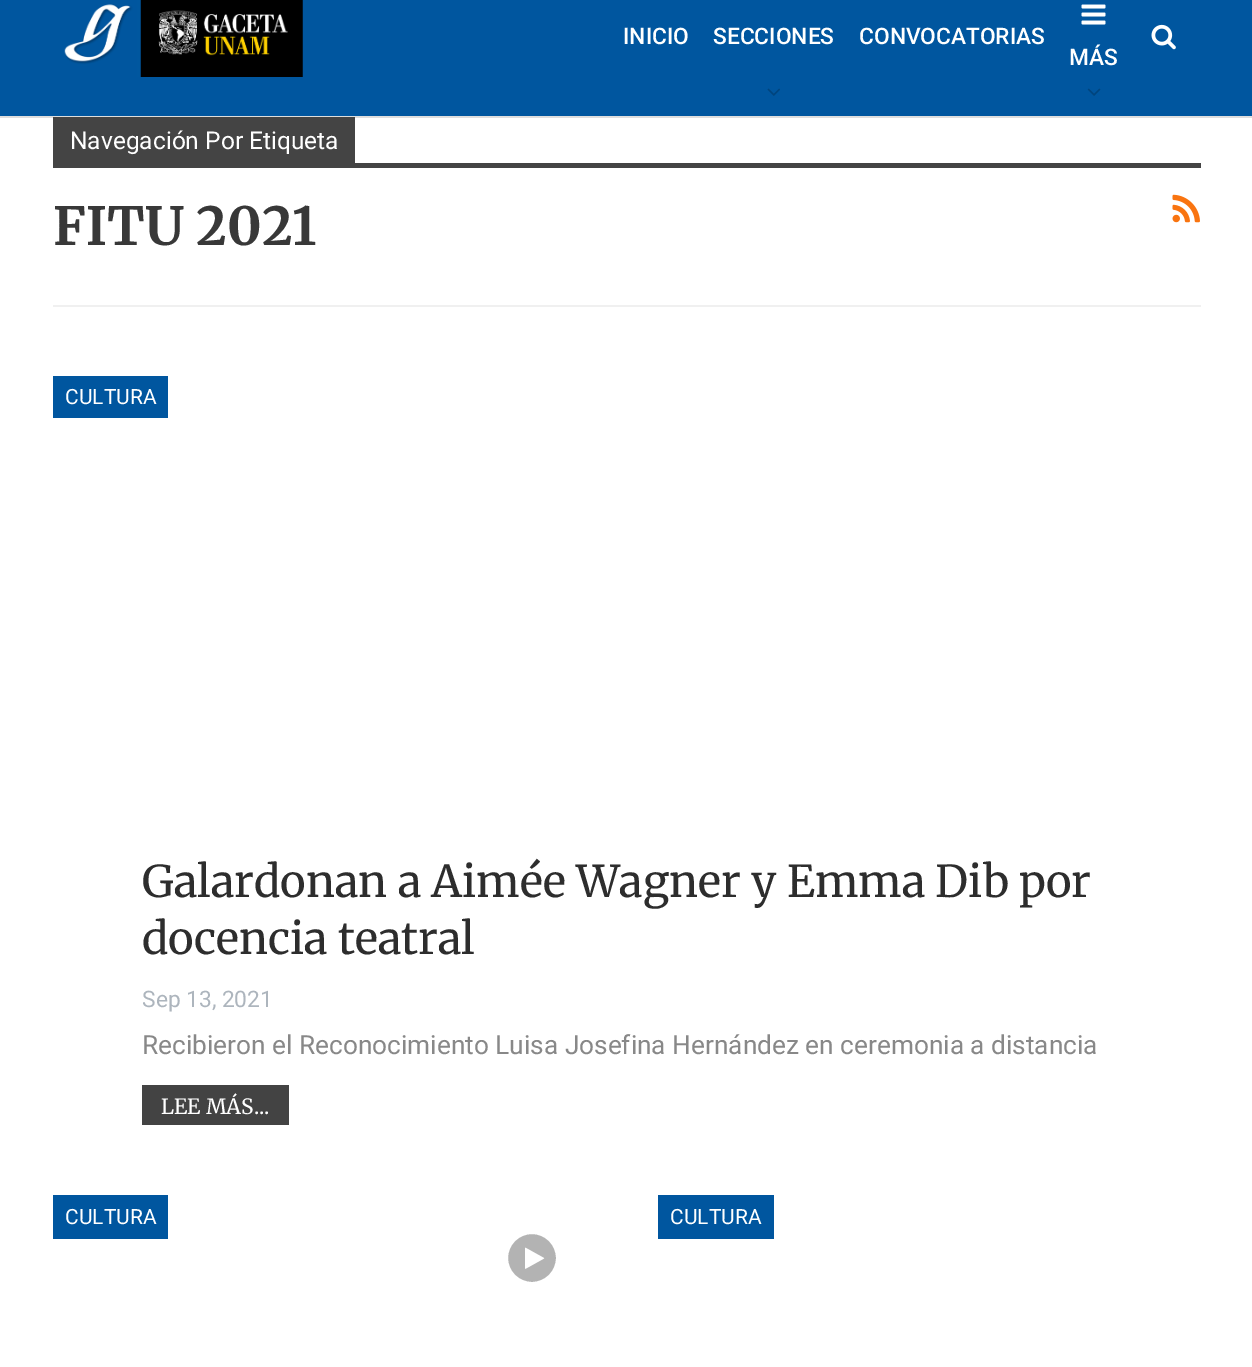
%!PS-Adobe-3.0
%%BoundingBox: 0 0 1252 1367
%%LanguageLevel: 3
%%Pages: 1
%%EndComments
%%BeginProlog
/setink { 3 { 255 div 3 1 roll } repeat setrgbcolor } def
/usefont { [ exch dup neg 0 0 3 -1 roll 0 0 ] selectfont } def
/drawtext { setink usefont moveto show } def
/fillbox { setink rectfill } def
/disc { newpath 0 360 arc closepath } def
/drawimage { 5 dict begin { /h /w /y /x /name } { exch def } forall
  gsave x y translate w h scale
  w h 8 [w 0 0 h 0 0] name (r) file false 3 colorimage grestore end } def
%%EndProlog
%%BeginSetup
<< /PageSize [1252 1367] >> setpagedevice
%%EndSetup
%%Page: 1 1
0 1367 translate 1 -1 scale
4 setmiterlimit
0 0 1252 1367 255 255 255 fillbox
0 0 1252 116 0 86 159 fillbox
0 116 1252 2 222 222 222 fillbox
(assets/img1.rgb) 64 0 239 77 drawimage
(INICIO) 623 44 /Roboto-Medium 22.75 255 255 255 drawtext
(SECCIONES) 713 44 /Roboto-Medium 22.75 255 255 255 drawtext
(assets/img2.rgb) 767 88 13 8 drawimage
(CONVOCATORIAS) 859 44 /Roboto-Medium 22.75 255 255 255 drawtext
(assets/img3.rgb) 1081 4 25 21 drawimage
(MÁS) 1069 65 /Roboto-Medium 22.75 255 255 255 drawtext
(assets/img4.rgb) 1087 88 14 8 drawimage
(assets/img5.rgb) 1151 24 25 26 drawimage
53 305 1148 2 240 240 240 fillbox
53 117 302 46 68 68 68 fillbox
(Navegación Por Etiqueta) 70 149 /Roboto-Regular 24.5 255 255 255 drawtext
53 163 1148 5 68 68 68 fillbox
(FITU 2021) 53 245 /Merriweather-Bold 52.5 56 56 56 drawtext
(assets/img6.rgb) 1172 194 28 29 drawimage
53 376 115 42 0 86 159 fillbox
(CULTURA) 65 404 /Roboto-Regular 21 255 255 255 drawtext
(Galardonan a Aimée Wagner y Emma Dib por) 142 897 /Merriweather-Regular 43.75 45 45 45 drawtext
(docencia teatral) 142 954 /Merriweather-Regular 43.75 45 45 45 drawtext
(Sep 13, 2021) 142 1007 /Roboto-Regular 22.75 173 181 189 drawtext
(Recibieron el Reconocimiento Luisa Josefina Hernández en ceremonia a distancia) 142 1054 /Roboto-Regular 26.25 136 136 136 drawtext
142 1085 147 40 67 67 67 fillbox
(LEE MÁS...) 161 1114 /Merriweather-Regular 21 255 255 255 drawtext
53 1195 115 44 0 86 159 fillbox
(CULTURA) 65 1224 /Roboto-Regular 21 255 255 255 drawtext
179 179 179 setink
532 1258 26 disc gsave fill grestore
255 255 255 setink
4 setlinewidth
stroke
(assets/img7.rgb) 525 1247 20 22 drawimage
658 1195 116 44 0 86 159 fillbox
(CULTURA) 670 1224 /Roboto-Regular 21 255 255 255 drawtext
showpage
%%EOF
